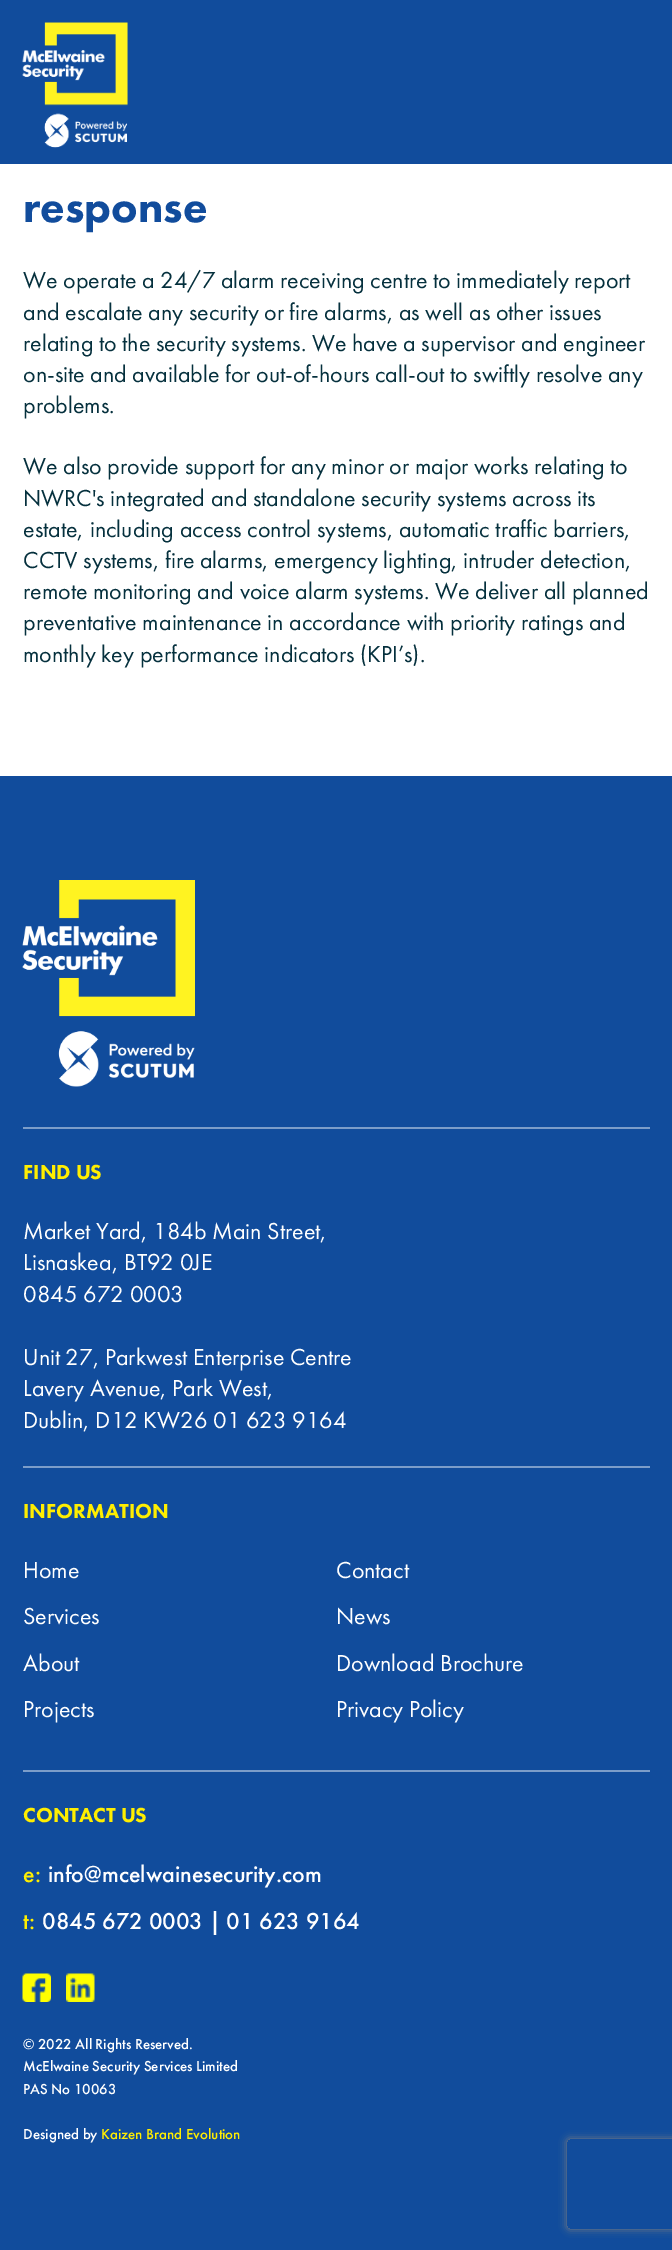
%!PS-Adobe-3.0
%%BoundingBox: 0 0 672 2250
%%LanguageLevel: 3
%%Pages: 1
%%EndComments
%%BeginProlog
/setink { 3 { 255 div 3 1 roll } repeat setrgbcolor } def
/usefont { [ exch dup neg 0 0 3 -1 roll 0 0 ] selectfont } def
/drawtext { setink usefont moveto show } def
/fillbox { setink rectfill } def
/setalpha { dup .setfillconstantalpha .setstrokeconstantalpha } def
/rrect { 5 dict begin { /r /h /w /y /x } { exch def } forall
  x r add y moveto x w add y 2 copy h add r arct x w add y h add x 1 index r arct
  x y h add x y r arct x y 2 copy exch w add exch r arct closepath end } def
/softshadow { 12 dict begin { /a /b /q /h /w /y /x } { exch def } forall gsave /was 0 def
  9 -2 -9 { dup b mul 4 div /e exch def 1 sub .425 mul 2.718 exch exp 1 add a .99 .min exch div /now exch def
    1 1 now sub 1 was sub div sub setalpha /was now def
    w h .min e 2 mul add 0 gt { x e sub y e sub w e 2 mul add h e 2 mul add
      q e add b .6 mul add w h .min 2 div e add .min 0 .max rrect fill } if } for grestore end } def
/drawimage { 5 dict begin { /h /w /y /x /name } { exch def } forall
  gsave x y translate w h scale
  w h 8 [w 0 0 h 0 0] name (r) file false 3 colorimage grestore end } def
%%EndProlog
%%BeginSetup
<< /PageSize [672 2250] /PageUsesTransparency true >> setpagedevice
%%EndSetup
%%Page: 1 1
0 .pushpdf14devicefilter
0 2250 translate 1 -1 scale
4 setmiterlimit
0 0 672 2250 255 255 255 fillbox
0 0 672 164 17 76 156 fillbox
(assets/img1.rgb) 22 22 106 126 drawimage
(response) 23 222 /FuturaPT-Black 45 17 76 156 drawtext
(We operate a 24/7 alarm receiving centre to immediately report) 23 288 /FuturaPT-Regular 24 5 48 61 drawtext
(and escalate any security or fire alarms, as well as other issues) 23 320 /FuturaPT-Regular 24 5 48 61 drawtext
(relating to the security systems. We have a supervisor and engineer) 23 351 /FuturaPT-Regular 24 5 48 61 drawtext
(on-site and available for out-of-hours call-out to swiftly resolve any) 23 382 /FuturaPT-Regular 24 5 48 61 drawtext
(problems.) 23 413 /FuturaPT-Regular 24 5 48 61 drawtext
(We also provide support for any minor or major works relating to) 23 474 /FuturaPT-Regular 24 5 48 61 drawtext
(NWRC's integrated and standalone security systems across its) 23 506 /FuturaPT-Regular 24 5 48 61 drawtext
(estate, including access control systems, automatic traffic barriers,) 23 537 /FuturaPT-Regular 24 5 48 61 drawtext
(CCTV systems, fire alarms, emergency lighting, intruder detection,) 23 568 /FuturaPT-Regular 24 5 48 61 drawtext
(remote monitoring and voice alarm systems. We deliver all planned) 23 599 /FuturaPT-Regular 24 5 48 61 drawtext
(preventative maintenance in accordance with priority ratings and) 23 630 /FuturaPT-Regular 24 5 48 61 drawtext
(monthly key performance indicators \(KPI’s\).) 23 662 /FuturaPT-Regular 24 5 48 61 drawtext
0 776 672 1474 17 76 156 fillbox
23 1127 627 2 124 157 201 fillbox
(assets/img2.rgb) 22 880 173 207 drawimage
23 1466 627 2 124 157 201 fillbox
(FIND US) 23 1179 /FuturaPT-Black 21 255 238 0 drawtext
(Market Yard, 184b Main Street,) 23 1239 /FuturaPT-Regular 24 255 255 255 drawtext
(Lisnaskea, BT92 0JE) 23 1270 /FuturaPT-Regular 24 255 255 255 drawtext
(0845 672 0003) 23 1302 /FuturaPT-Regular 24 255 255 255 drawtext
(Unit 27, Parkwest Enterprise Centre) 23 1365 /FuturaPT-Regular 24 255 255 255 drawtext
(Lavery Avenue, Park West,) 23 1396 /FuturaPT-Regular 24 255 255 255 drawtext
(Dublin, D12 KW26 01 623 9164) 23 1428 /FuturaPT-Regular 24 255 255 255 drawtext
23 1770 627 2 124 157 201 fillbox
(INFORMATION) 23 1518 /FuturaPT-Black 21 255 238 0 drawtext
(Home) 23 1578 /FuturaPT-Regular 24 255 255 255 drawtext
(Services) 23 1624 /FuturaPT-Regular 24 255 255 255 drawtext
(About) 23 1671 /FuturaPT-Regular 24 255 255 255 drawtext
(Projects) 23 1717 /FuturaPT-Regular 24 255 255 255 drawtext
(Contact) 336 1578 /FuturaPT-Regular 24 255 255 255 drawtext
(News) 336 1624 /FuturaPT-Regular 24 255 255 255 drawtext
(Download Brochure) 336 1671 /FuturaPT-Regular 24 255 255 255 drawtext
(Privacy Policy) 336 1717 /FuturaPT-Regular 24 255 255 255 drawtext
(CONTACT US) 23 1822 /FuturaPT-Black 21 255 238 0 drawtext
(e:) 23 1882 /FuturaPT-Medium 24 255 238 0 drawtext
(info@mcelwainesecurity.com) 48 1882 /FuturaPT-Medium 24 255 255 255 drawtext
(t:) 23 1929 /FuturaPT-Medium 24 255 238 0 drawtext
(0845 672 0003 | 01 623 9164) 42 1929 /FuturaPT-Medium 24 255 255 255 drawtext
(assets/img3.rgb) 22 1973 29 29 drawimage
(assets/img4.rgb) 66 1973 29 29 drawimage
(© 2022 All Rights Reserved.) 23 2049 /FuturaPT-Medium 15 255 255 255 drawtext
(McElwaine Security Services Limited) 23 2071 /FuturaPT-Medium 15 255 255 255 drawtext
(PAS No 10063) 23 2094 /FuturaPT-Medium 15 255 255 255 drawtext
(Designed by) 23 2139 /FuturaPT-Medium 15 255 255 255 drawtext
(Kaizen Brand Evolution) 101 2139 /FuturaPT-Medium 15 255 238 0 drawtext
gsave
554 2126 moveto 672 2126 lineto 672 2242 lineto 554 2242 lineto closepath 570 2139 moveto 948 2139 lineto 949.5 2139 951 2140.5 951 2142 curveto 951 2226 lineto 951 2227.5 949.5 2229 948 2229 curveto 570 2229 lineto 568.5 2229 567 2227.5 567 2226 curveto 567 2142 lineto 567 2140.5 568.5 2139 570 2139 curveto closepath eoclip newpath
128 128 128 setink
567 2139 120 90 3 4 1 softshadow
grestore
.poppdf14devicefilter showpage
%%EOF
